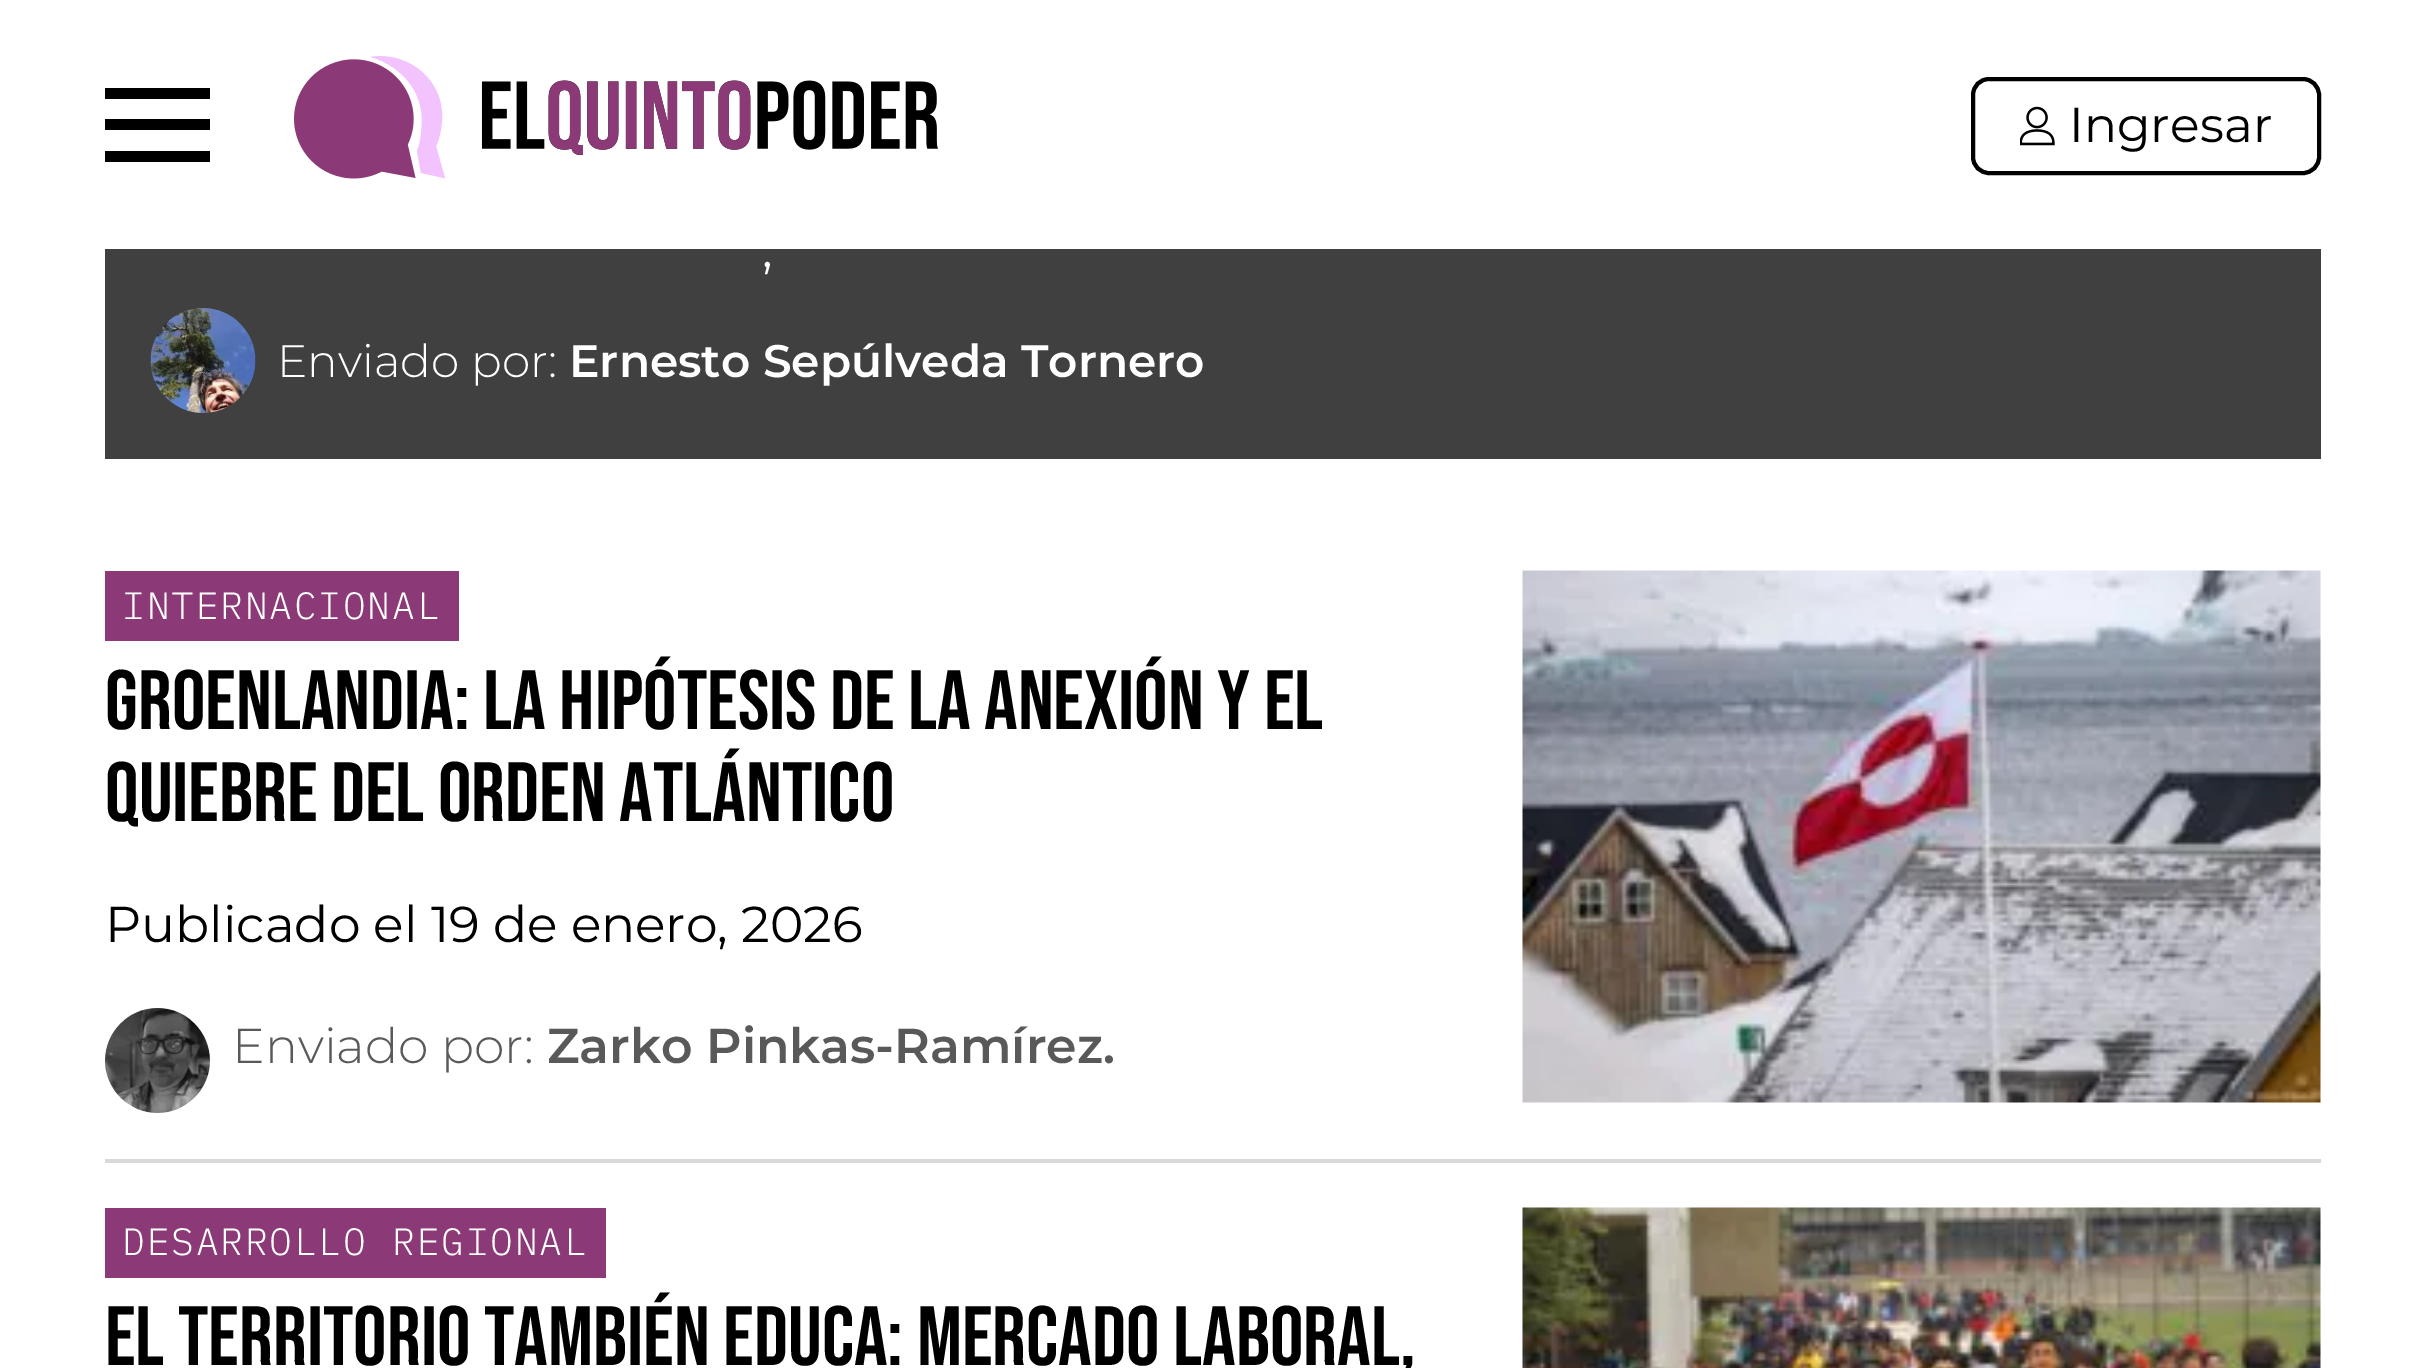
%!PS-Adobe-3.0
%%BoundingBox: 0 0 2423 1368
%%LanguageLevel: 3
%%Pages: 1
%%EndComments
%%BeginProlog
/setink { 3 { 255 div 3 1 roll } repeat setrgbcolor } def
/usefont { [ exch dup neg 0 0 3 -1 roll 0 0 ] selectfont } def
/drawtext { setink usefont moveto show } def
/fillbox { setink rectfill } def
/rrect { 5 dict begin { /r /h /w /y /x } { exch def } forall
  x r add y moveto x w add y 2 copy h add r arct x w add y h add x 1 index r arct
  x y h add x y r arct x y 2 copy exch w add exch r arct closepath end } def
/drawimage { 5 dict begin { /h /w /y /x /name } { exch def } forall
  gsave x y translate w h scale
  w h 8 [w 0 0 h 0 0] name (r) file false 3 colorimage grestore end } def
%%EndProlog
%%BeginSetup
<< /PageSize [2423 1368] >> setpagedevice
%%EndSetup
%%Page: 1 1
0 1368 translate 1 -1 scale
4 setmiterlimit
0 0 2423 1368 255 255 255 fillbox
105 88 105 11 0 0 0 fillbox
105 119 105 11 0 0 0 fillbox
105 151 105 11 0 0 0 fillbox
(assets/img1.rgb) 294 56 644 123 drawimage
4 setlinewidth
1973 79 346 94 16 rrect stroke
(assets/img2.rgb) 2020 106 35 40 drawimage
(Ingresar) 2069 142 /Montserrat-Regular 49 0 0 0 drawtext
gsave 105 249 moveto 2321 249 lineto 2321 459 lineto 105 459 lineto closepath clip newpath
<< /ShadingType 2 /ColorSpace /DeviceRGB /Coords [1213 459 1213 -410] /Extend [true true] /Function << /FunctionType 3 /Domain [0 1] /Functions [<< /FunctionType 2 /Domain [0 1] /C0 [0.251 0.251 0.251] /C1 [0.251 0.251 0.251] /N 1 >> << /FunctionType 2 /Domain [0 1] /C0 [0.251 0.251 0.251] /C1 [1 1 1] /N 1 >> << /FunctionType 2 /Domain [0 1] /C0 [1 1 1] /C1 [1 1 1] /N 1 >>] /Bounds [0.56 0.97] /Encode [0 1 0 1 0 1] >> >> shfill grestore
(,) 762 267 /Montserrat-Regular 50.4 255 255 255 drawtext
(assets/img3.rgb) 150 308 106 105 drawimage
(Enviado por:) 277 377 /Montserrat-Light 45.5 255 255 255 drawtext
(Ernesto Sepúlveda Tornero) 569 377 /Montserrat-SemiBold 45.5 255 255 255 drawtext
105 1159 2216 4 217 217 217 fillbox
105 571 354 70 140 58 119 fillbox
/IBMPlexMono-Light 38 usefont
255 255 255 setink
122 619 moveto 1.75 0 (INTERNACIONAL) ashow
(Groenlandia: la hipótesis de la anexión y el) 105 729 /BebasNeue-Regular 84 0 0 0 drawtext
(quiebre del orden atlántico) 105 821 /BebasNeue-Regular 84 0 0 0 drawtext
(Publicado el 19 de enero, 2026) 105 942 /Montserrat-Regular 50.4 0 0 0 drawtext
(assets/img4.rgb) 105 1008 105 105 drawimage
(Enviado por:) 232 1063 /Montserrat-Light 49 89 89 89 drawtext
(Zarko Pinkas-Ramírez.) 547 1063 /Montserrat-SemiBold 49 89 89 89 drawtext
(assets/img5.rgb) 1522 570 799 533 drawimage
105 1208 501 70 140 58 119 fillbox
/IBMPlexMono-Light 38 usefont
255 255 255 setink
122 1255 moveto 1.75 0 (DESARROLLO REGIONAL) ashow
(El territorio también educa: mercado laboral,) 105 1365 /BebasNeue-Regular 84 0 0 0 drawtext
(assets/img6.rgb) 1522 1207 799 161 drawimage
showpage
%%EOF
